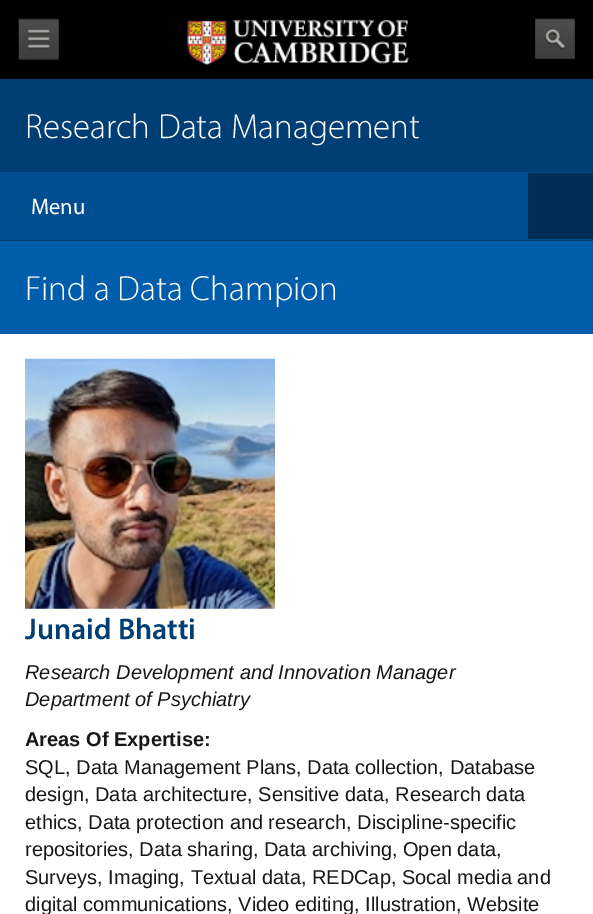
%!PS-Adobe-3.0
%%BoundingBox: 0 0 593 914
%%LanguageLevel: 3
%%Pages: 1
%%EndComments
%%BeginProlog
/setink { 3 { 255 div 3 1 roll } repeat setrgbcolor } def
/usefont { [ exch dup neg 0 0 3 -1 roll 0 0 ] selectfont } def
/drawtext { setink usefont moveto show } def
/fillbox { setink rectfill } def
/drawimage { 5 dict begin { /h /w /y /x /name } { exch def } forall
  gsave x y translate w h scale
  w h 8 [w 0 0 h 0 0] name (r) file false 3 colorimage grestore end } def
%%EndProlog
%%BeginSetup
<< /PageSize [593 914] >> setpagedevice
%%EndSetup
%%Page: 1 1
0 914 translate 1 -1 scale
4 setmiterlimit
0 0 593 914 0 0 0 fillbox
(assets/img1.rgb) 18 18 41 42 drawimage
(assets/img2.rgb) 187 19 222 47 drawimage
(assets/img3.rgb) 535 18 40 41 drawimage
0 79 593 93 0 62 116 fillbox
(Research Data Management) 25 138 /Myriad-Light 35 255 255 255 drawtext
0 172 593 68 0 78 143 fillbox
0 240 593 1 0 62 116 fillbox
(Menu) 31 214 /Myriad-Regular 22.5 255 255 255 drawtext
528 173 65 66 0 46 85 fillbox
0 241 593 93 0 93 171 fillbox
(Find a Data Champion) 25 300 /Myriad-Light 35 255 255 255 drawtext
0 334 593 580 255 255 255 fillbox
(assets/img4.rgb) 25 358 250 251 drawimage
(Junaid Bhatti) 25 639 /Myriad-SemiBold 30 0 62 116 drawtext
(Research Development and Innovation Manager) 25 679 /LiberationSans-Italic 20 23 23 23 drawtext
(Department of Psychiatry) 25 706 /LiberationSans-Italic 20 23 23 23 drawtext
(Areas Of Expertise:) 25 746 /LiberationSans-Bold 20 23 23 23 drawtext
(SQL, Data Management Plans, Data collection, Database) 25 774 /LiberationSans-Regular 20 23 23 23 drawtext
(design, Data architecture, Sensitive data, Research data) 25 801 /LiberationSans-Regular 20 23 23 23 drawtext
(ethics, Data protection and research, Discipline-specific) 25 829 /LiberationSans-Regular 20 23 23 23 drawtext
(repositories, Data sharing, Data archiving, Open data,) 25 856 /LiberationSans-Regular 20 23 23 23 drawtext
(Surveys, Imaging, Textual data, REDCap, Socal media and) 25 884 /LiberationSans-Regular 20 23 23 23 drawtext
(digital communications, Video editing, Illustration, Website) 25 911 /LiberationSans-Regular 20 23 23 23 drawtext
showpage
%%EOF
